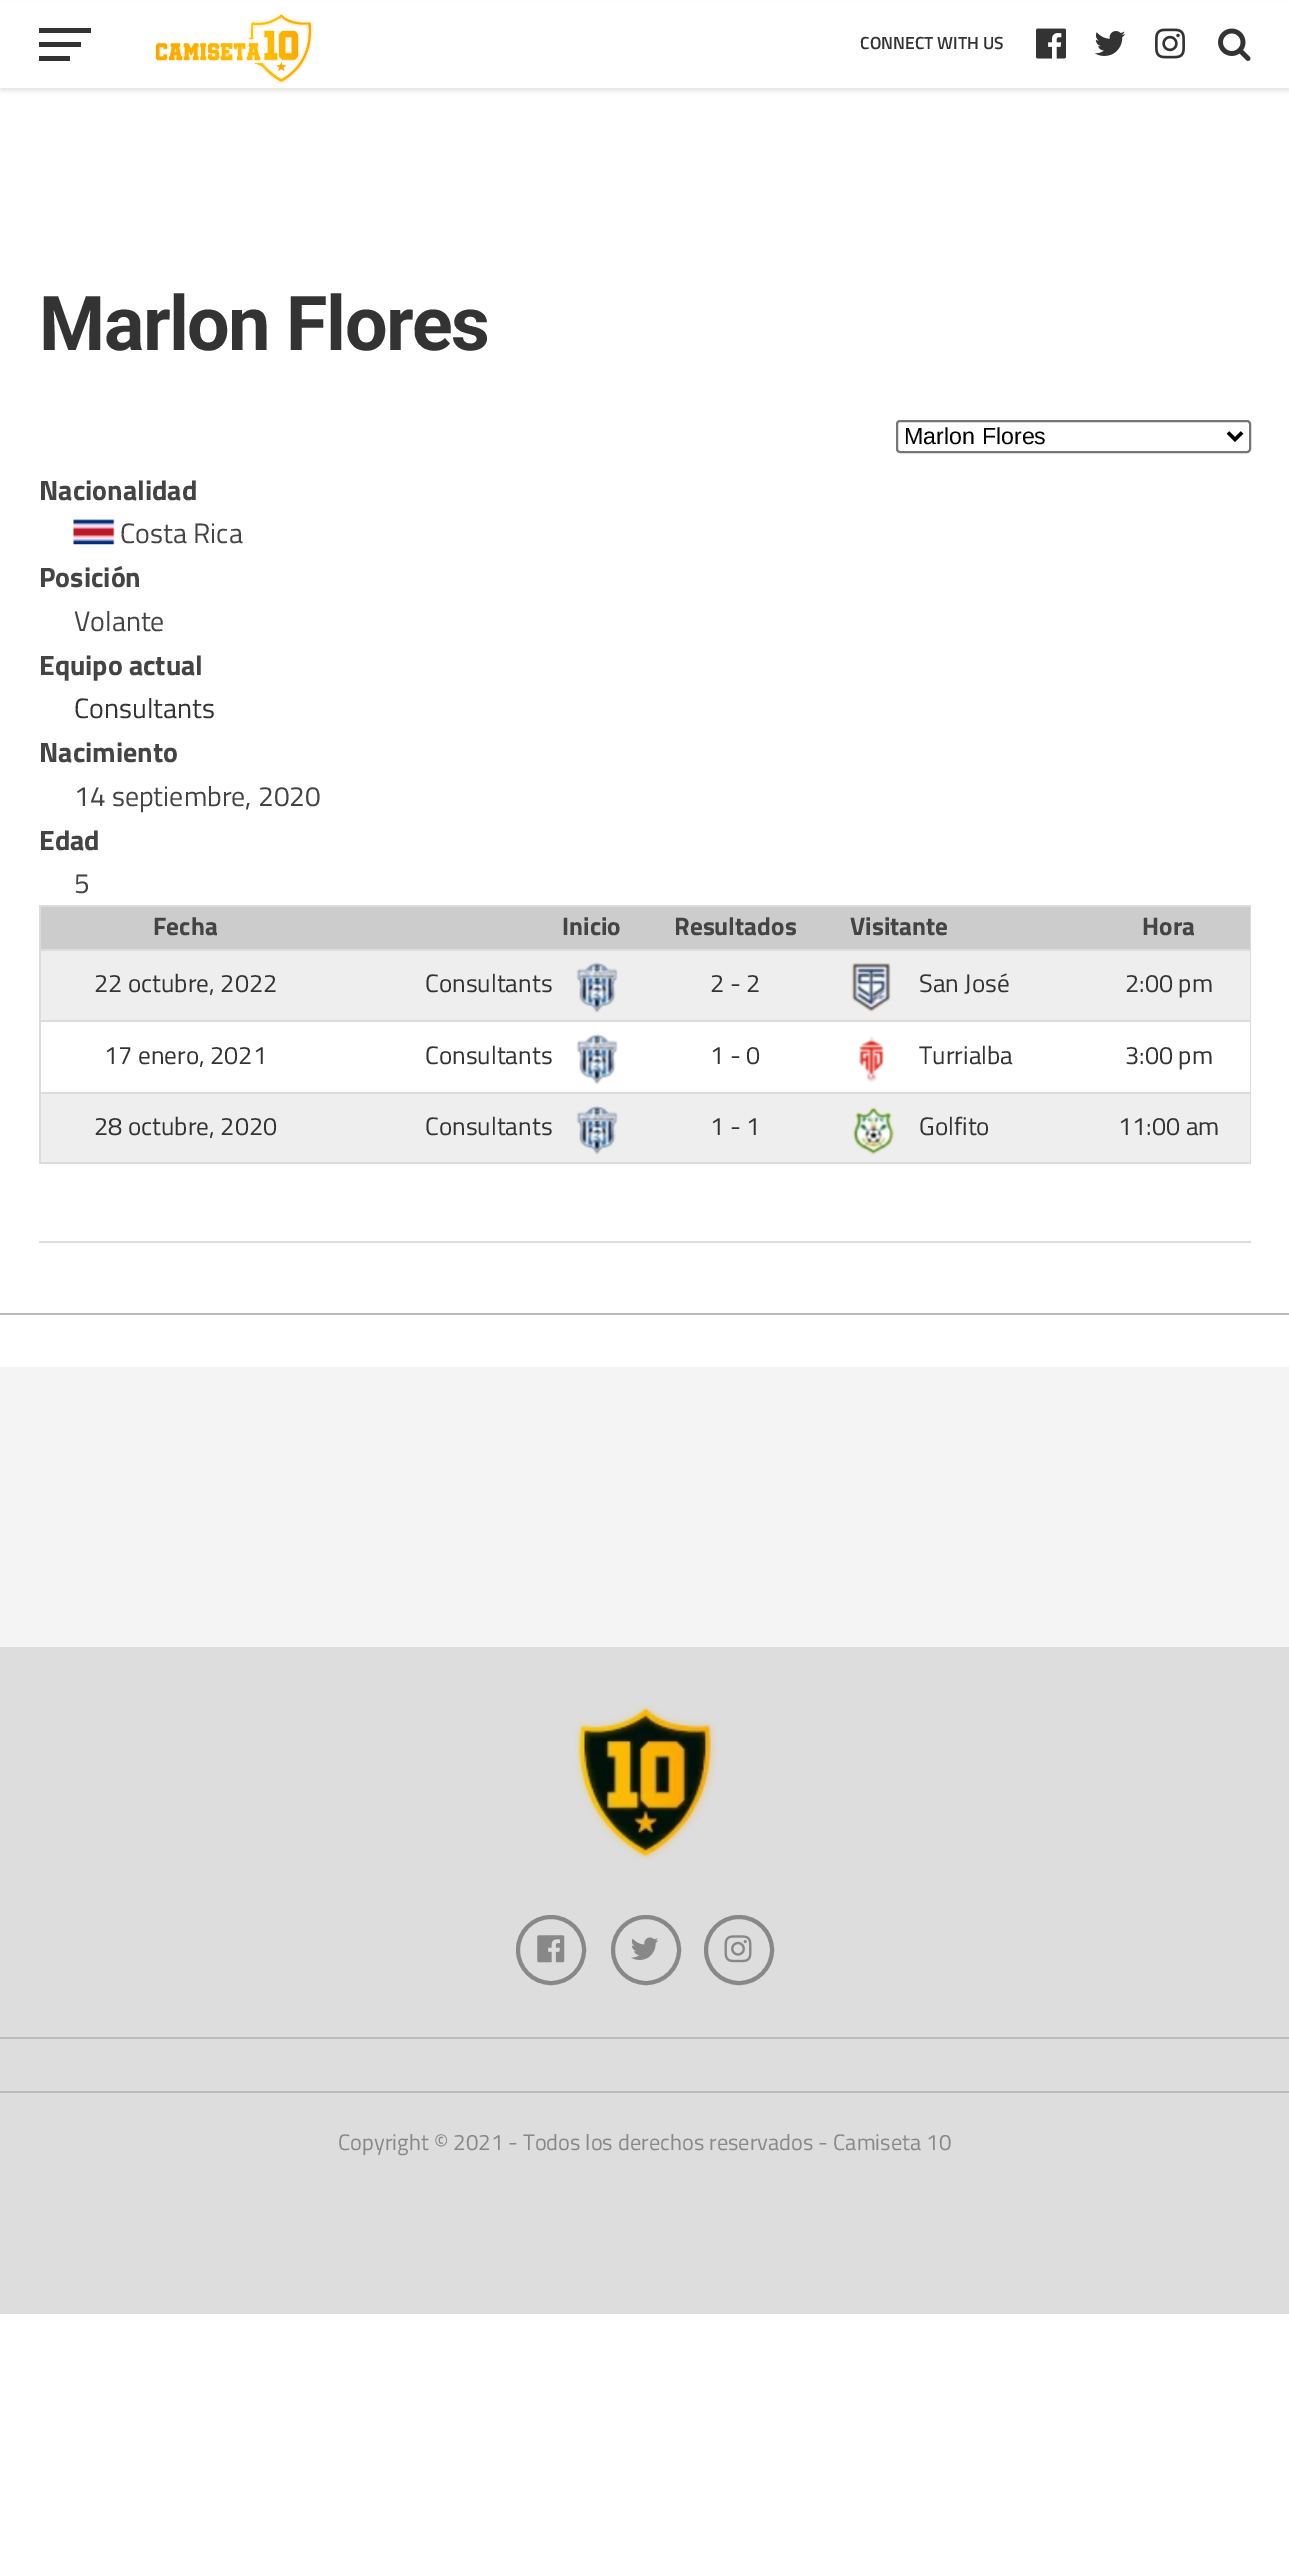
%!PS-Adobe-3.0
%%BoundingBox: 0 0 1289 2554
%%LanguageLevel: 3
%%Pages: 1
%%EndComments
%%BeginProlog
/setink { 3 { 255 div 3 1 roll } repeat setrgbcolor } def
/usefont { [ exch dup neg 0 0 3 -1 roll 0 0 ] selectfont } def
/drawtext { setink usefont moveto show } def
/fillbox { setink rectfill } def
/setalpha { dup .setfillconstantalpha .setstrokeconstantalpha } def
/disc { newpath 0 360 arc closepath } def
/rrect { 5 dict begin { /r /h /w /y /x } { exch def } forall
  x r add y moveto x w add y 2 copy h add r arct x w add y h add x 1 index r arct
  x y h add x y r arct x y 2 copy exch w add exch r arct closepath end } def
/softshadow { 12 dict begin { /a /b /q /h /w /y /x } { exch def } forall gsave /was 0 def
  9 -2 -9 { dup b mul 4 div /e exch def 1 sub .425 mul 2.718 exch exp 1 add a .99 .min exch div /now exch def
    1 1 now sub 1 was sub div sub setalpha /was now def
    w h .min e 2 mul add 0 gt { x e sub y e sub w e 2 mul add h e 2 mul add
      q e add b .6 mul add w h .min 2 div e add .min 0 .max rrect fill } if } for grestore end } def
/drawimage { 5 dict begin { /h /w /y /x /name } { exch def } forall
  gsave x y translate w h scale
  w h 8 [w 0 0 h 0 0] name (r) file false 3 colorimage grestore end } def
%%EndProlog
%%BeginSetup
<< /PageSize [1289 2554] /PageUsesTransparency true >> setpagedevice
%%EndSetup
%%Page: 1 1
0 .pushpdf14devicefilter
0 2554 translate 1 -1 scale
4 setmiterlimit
0 0 1289 2554 255 255 255 fillbox
0 0 0 setink
0 4 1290 87 0 2 0.1 softshadow
0 1 1289 87 255 255 255 fillbox
39 28 52 5 51 51 51 fillbox
39 42 42 5 51 51 51 fillbox
39 56 31 5 51 51 51 fillbox
(assets/img1.rgb) 155 13 159 71 drawimage
(CONNECT WITH US) 860 49 /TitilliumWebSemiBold-SemiBold 17.5 51 51 51 drawtext
(assets/img2.rgb) 1036 28 30 31 drawimage
(assets/img3.rgb) 1094 31 32 25 drawimage
(assets/img4.rgb) 1155 28 30 31 drawimage
(assets/img5.rgb) 1218 28 33 33 drawimage
0 1313 1289 2 187 187 187 fillbox
/Roboto-Bold 75.5 usefont
51 51 51 setink
39 350 moveto -1.5 0 (Marlon Flores) ashow
118 118 118 setink
2 setlinewidth
897 421 353 31 3 rrect stroke
0 0 0 setink
3.5 setlinewidth
1228 432.5 moveto 1235 439.5 lineto 1242 432.5 lineto stroke
(Marlon Flores) 904 444 /LiberationSans-Regular 23.25 0 0 0 drawtext
(Nacionalidad) 39 500 /TitilliumWeb-Bold 28 68 68 68 drawtext
(assets/img6.rgb) 73 519 42 26 drawimage
(Costa Rica) 120 543 /TitilliumWeb-Regular 28 68 68 68 drawtext
(Posición) 39 587 /TitilliumWeb-Bold 28 68 68 68 drawtext
(Volante) 74 631 /TitilliumWeb-Regular 28 68 68 68 drawtext
(Equipo actual) 39 675 /TitilliumWeb-Bold 28 68 68 68 drawtext
(Consultants) 74 718 /TitilliumWeb-Regular 28 51 51 51 drawtext
(Nacimiento) 39 762 /TitilliumWeb-Bold 28 68 68 68 drawtext
(14 septiembre, 2020) 74 806 /TitilliumWeb-Regular 28 68 68 68 drawtext
(Edad) 39 850 /TitilliumWeb-Bold 28 68 68 68 drawtext
(5) 74 893 /TitilliumWeb-Regular 28 68 68 68 drawtext
41 907 1209 42 204 204 204 fillbox
39 905 1212 2 220 220 220 fillbox
39 949 1212 2 220 220 220 fillbox
39 1020 1212 2 220 220 220 fillbox
39 1092 1212 2 220 220 220 fillbox
1250 1092 1 72 220 220 220 fillbox
1250 1020 1 74 220 220 220 fillbox
1250 949 1 73 220 220 220 fillbox
1250 905 1 45 220 220 220 fillbox
39 1162 1212 2 220 220 220 fillbox
39 1092 2 72 220 220 220 fillbox
39 1020 2 74 220 220 220 fillbox
39 949 2 73 220 220 220 fillbox
39 905 2 45 220 220 220 fillbox
(Fecha) 153 935 /TitilliumWeb-Bold 25.25 68 68 68 drawtext
(Inicio) 562 935 /TitilliumWeb-Bold 25.25 68 68 68 drawtext
(Resultados) 674 935 /TitilliumWeb-Bold 25.25 68 68 68 drawtext
(Visitante) 850 935 /TitilliumWeb-Bold 25.25 68 68 68 drawtext
(Hora) 1142 935 /TitilliumWeb-Bold 25.25 68 68 68 drawtext
41 951 1209 69 238 238 238 fillbox
(22 octubre, 2022) 94 992 /TitilliumWeb-Regular 25.25 51 51 51 drawtext
(Consultants) 425 992 /TitilliumWeb-Regular 25.25 51 51 51 drawtext
(assets/img7.rgb) 576 962 42 51 drawimage
(2 - 2) 710 992 /TitilliumWeb-Regular 25.25 51 51 51 drawtext
(assets/img8.rgb) 851 962 40 50 drawimage
(San José) 919 992 /TitilliumWeb-Regular 25.25 51 51 51 drawtext
(2:00 pm) 1125 992 /TitilliumWeb-Regular 25.25 51 51 51 drawtext
(17 enero, 2021) 104 1064 /TitilliumWeb-Regular 25.25 51 51 51 drawtext
(Consultants) 425 1064 /TitilliumWeb-Regular 25.25 51 51 51 drawtext
(assets/img9.rgb) 576 1034 42 51 drawimage
(1 - 0) 710 1064 /TitilliumWeb-Regular 25.25 51 51 51 drawtext
(assets/img10.rgb) 859 1036 25 46 drawimage
(Turrialba) 919 1064 /TitilliumWeb-Regular 25.25 51 51 51 drawtext
(3:00 pm) 1125 1064 /TitilliumWeb-Regular 25.25 51 51 51 drawtext
41 1094 1209 68 238 238 238 fillbox
(28 octubre, 2020) 94 1135 /TitilliumWeb-Regular 25.25 51 51 51 drawtext
(Consultants) 425 1135 /TitilliumWeb-Regular 25.25 51 51 51 drawtext
(assets/img11.rgb) 576 1106 42 49 drawimage
(1 - 1) 710 1135 /TitilliumWeb-Regular 25.25 51 51 51 drawtext
(assets/img12.rgb) 852 1107 43 48 drawimage
(Golfito) 919 1135 /TitilliumWeb-Regular 25.25 51 51 51 drawtext
(11:00 am) 1118 1135 /TitilliumWeb-Regular 25.25 51 51 51 drawtext
39 1241 1212 2 221 221 221 fillbox
0 1367 1289 280 244 244 244 fillbox
0 1647 1289 667 221 221 221 fillbox
(assets/img13.rgb) 574 1705 143 156 drawimage
136 136 136 setink
4 setlinewidth
551 1950 33 disc stroke
(assets/img14.rgb) 537 1935 28 28 drawimage
646 1950 33 disc stroke
(assets/img15.rgb) 631 1937 28 23 drawimage
739 1950 33 disc stroke
(assets/img16.rgb) 724 1935 28 28 drawimage
0 2037 1289 2 187 187 187 fillbox
0 2091 1289 2 187 187 187 fillbox
(Copyright © 2021 - Todos los derechos reservados - Camiseta 10) 338 2150 /TitilliumWeb-Regular 22.4 136 136 136 drawtext
.poppdf14devicefilter showpage
%%EOF
